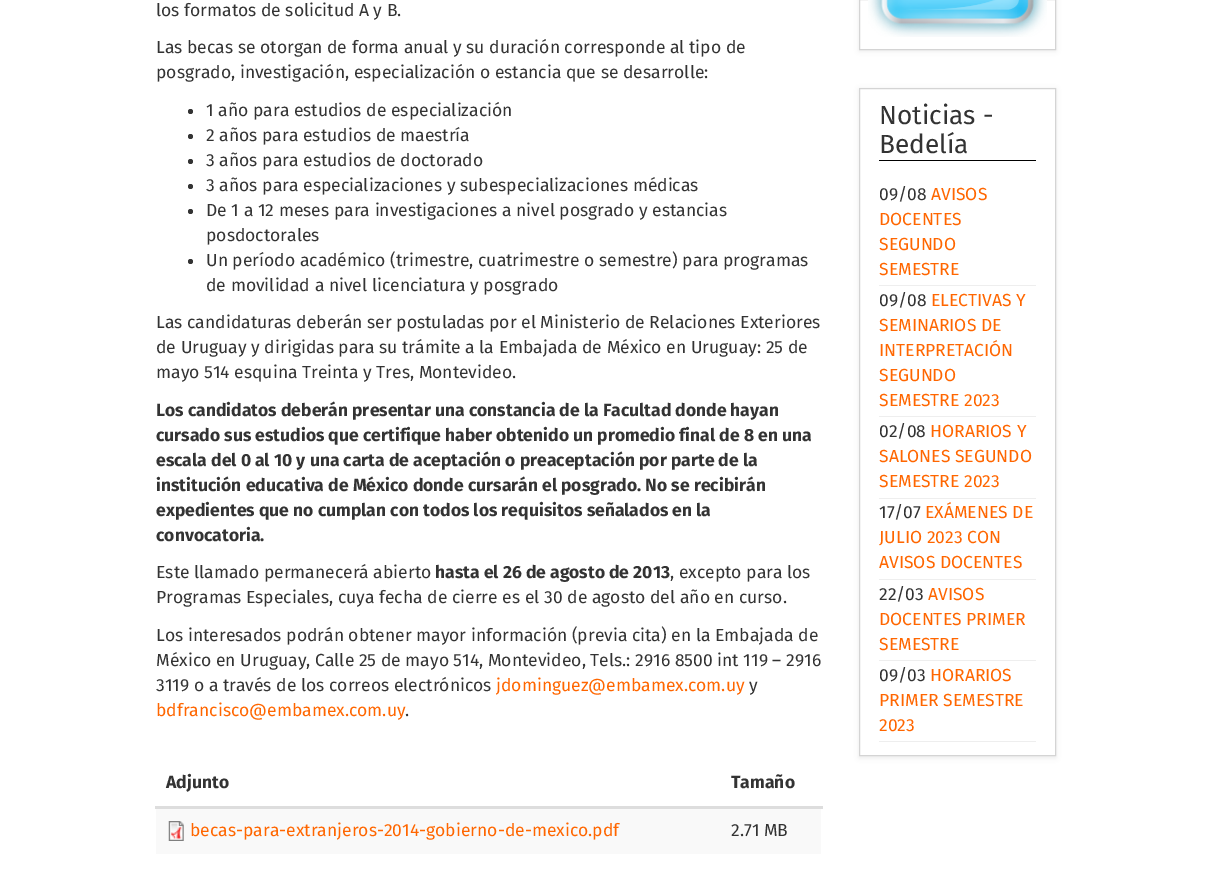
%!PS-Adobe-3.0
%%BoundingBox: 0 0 1211 894
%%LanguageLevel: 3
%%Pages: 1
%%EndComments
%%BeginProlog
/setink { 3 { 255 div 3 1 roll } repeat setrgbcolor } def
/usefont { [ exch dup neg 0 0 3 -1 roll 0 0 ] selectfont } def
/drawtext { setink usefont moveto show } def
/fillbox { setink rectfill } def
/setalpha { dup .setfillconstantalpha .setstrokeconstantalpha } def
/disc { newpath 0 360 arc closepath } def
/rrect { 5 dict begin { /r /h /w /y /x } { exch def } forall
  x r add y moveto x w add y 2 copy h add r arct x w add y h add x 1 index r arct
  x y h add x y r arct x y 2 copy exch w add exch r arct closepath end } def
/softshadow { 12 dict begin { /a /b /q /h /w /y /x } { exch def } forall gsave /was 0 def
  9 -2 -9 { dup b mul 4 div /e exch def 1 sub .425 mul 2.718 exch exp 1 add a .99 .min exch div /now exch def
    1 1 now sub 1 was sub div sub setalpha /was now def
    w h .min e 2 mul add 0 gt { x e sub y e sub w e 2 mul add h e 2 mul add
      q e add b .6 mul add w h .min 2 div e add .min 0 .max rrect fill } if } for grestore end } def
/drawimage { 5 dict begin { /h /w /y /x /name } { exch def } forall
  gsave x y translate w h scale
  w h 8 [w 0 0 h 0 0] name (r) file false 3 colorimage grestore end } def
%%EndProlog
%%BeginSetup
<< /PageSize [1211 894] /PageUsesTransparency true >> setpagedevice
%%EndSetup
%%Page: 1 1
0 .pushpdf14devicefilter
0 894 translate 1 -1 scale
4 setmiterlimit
0 0 1211 894 255 255 255 fillbox
(los formatos de solicitud A y B.) 156 16 /FiraSans-Regular 17.5 51 51 51 drawtext
(Las becas se otorgan de forma anual y su duración corresponde al tipo de) 156 53 /FiraSans-Regular 17.5 51 51 51 drawtext
(posgrado, investigación, especialización o estancia que se desarrolle:) 156 78 /FiraSans-Regular 17.5 51 51 51 drawtext
190.5 111.5 2.5 disc fill
(1 año para estudios de especialización) 206 116 /FiraSans-Regular 17.5 51 51 51 drawtext
190.5 136.5 2.5 disc fill
(2 años para estudios de maestría) 206 141 /FiraSans-Regular 17.5 51 51 51 drawtext
190.5 161.5 2.5 disc fill
(3 años para estudios de doctorado) 206 166 /FiraSans-Regular 17.5 51 51 51 drawtext
190.5 186.5 2.5 disc fill
(3 años para especializaciones y subespecializaciones médicas) 206 191 /FiraSans-Regular 17.5 51 51 51 drawtext
190.5 211.5 2.5 disc fill
(De 1 a 12 meses para investigaciones a nivel posgrado y estancias) 206 216 /FiraSans-Regular 17.5 51 51 51 drawtext
(posdoctorales) 206 241 /FiraSans-Regular 17.5 51 51 51 drawtext
190.5 261.5 2.5 disc fill
(Un período académico \(trimestre, cuatrimestre o semestre\) para programas) 206 266 /FiraSans-Regular 17.5 51 51 51 drawtext
(de movilidad a nivel licenciatura y posgrado) 206 291 /FiraSans-Regular 17.5 51 51 51 drawtext
(Las candidaturas deberán ser postuladas por el Ministerio de Relaciones Exteriores) 156 328 /FiraSans-Regular 17.5 51 51 51 drawtext
(de Uruguay y dirigidas para su trámite a la Embajada de México en Uruguay: 25 de) 156 353 /FiraSans-Regular 17.5 51 51 51 drawtext
(mayo 514 esquina Treinta y Tres, Montevideo.) 156 378 /FiraSans-Regular 17.5 51 51 51 drawtext
(Los candidatos deberán presentar una constancia de la Facultad donde hayan) 156 416 /FiraSans-Bold 17.5 51 51 51 drawtext
(cursado sus estudios que certifique haber obtenido un promedio final de 8 en una) 156 441 /FiraSans-Bold 17.5 51 51 51 drawtext
(escala del 0 al 10 y una carta de aceptación o preaceptación por parte de la) 156 466 /FiraSans-Bold 17.5 51 51 51 drawtext
(institución educativa de México donde cursarán el posgrado. No se recibirán) 156 491 /FiraSans-Bold 17.5 51 51 51 drawtext
(expedientes que no cumplan con todos los requisitos señalados en la) 156 516 /FiraSans-Bold 17.5 51 51 51 drawtext
(convocatoria.) 156 541 /FiraSans-Bold 17.5 51 51 51 drawtext
(Este llamado permanecerá abierto) 156 578 /FiraSans-Regular 17.5 51 51 51 drawtext
(hasta el 26 de agosto de 2013) 435 578 /FiraSans-Bold 17.5 51 51 51 drawtext
(, excepto para los) 670 578 /FiraSans-Regular 17.5 51 51 51 drawtext
(Programas Especiales, cuya fecha de cierre es el 30 de agosto del año en curso.) 156 603 /FiraSans-Regular 17.5 51 51 51 drawtext
(Los interesados podrán obtener mayor información \(previa cita\) en la Embajada de) 156 641 /FiraSans-Regular 17.5 51 51 51 drawtext
(México en Uruguay, Calle 25 de mayo 514, Montevideo, Tels.: 2916 8500 int 119 – 2916) 156 666 /FiraSans-Regular 17.5 51 51 51 drawtext
(3119 o a través de los correos electrónicos) 156 691 /FiraSans-Regular 17.5 51 51 51 drawtext
(jdominguez@embamex.com.uy) 496 691 /FiraSans-Regular 17.5 255 102 0 drawtext
(y) 749 691 /FiraSans-Regular 17.5 51 51 51 drawtext
(bdfrancisco@embamex.com.uy) 156 716 /FiraSans-Regular 17.5 255 102 0 drawtext
(.) 405 716 /FiraSans-Regular 17.5 51 51 51 drawtext
(Adjunto) 166 788 /FiraSans-Bold 17.5 51 51 51 drawtext
155 806 668 3 221 221 221 fillbox
(Tamaño) 731 788 /FiraSans-Bold 17.5 51 51 51 drawtext
156 809 665 45 249 249 249 fillbox
(assets/img1.rgb) 168 821 16 20 drawimage
(becas-para-extranjeros-2014-gobierno-de-mexico.pdf) 190 836 /FiraSans-Regular 17.5 255 102 0 drawtext
(2.71 MB) 731 836 /FiraSans-Regular 17.5 51 51 51 drawtext
gsave
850 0 moveto 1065 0 lineto 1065 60 lineto 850 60 lineto closepath 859 -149 moveto 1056 -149 lineto 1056 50 lineto 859 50 lineto closepath eoclip newpath
0 0 0 setink
859 -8 197 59 0 2.5 0.07 softshadow
grestore
212 212 212 setink
859.5 -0.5 196 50 rectstroke
(assets/img2.rgb) 868 0 179 37 drawimage
gsave
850 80 moveto 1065 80 lineto 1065 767 lineto 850 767 lineto closepath 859 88 moveto 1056 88 lineto 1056 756 lineto 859 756 lineto closepath eoclip newpath
0 0 0 setink
859 89 197 669 0 2.5 0.07 softshadow
grestore
859.5 88.5 196 667 rectstroke
879 160 157 1 0 0 0 fillbox
(Noticias -) 879 124 /FiraSans-Regular 26.25 51 51 51 drawtext
(Bedelía) 879 153 /FiraSans-Regular 26.25 51 51 51 drawtext
879 285 157 1 238 238 238 fillbox
(09/08) 879 200 /FiraSans-Regular 17.5 51 51 51 drawtext
(AVISOS) 931 200 /FiraSans-Regular 17.5 255 102 0 drawtext
(DOCENTES) 879 225 /FiraSans-Regular 17.5 255 102 0 drawtext
(SEGUNDO) 879 250 /FiraSans-Regular 17.5 255 102 0 drawtext
(SEMESTRE) 879 275 /FiraSans-Regular 17.5 255 102 0 drawtext
879 416 157 1 238 238 238 fillbox
(09/08) 879 306 /FiraSans-Regular 17.5 51 51 51 drawtext
(ELECTIVAS Y) 931 306 /FiraSans-Regular 17.5 255 102 0 drawtext
(SEMINARIOS DE) 879 331 /FiraSans-Regular 17.5 255 102 0 drawtext
(INTERPRETACIÓN) 879 356 /FiraSans-Regular 17.5 255 102 0 drawtext
(SEGUNDO) 879 381 /FiraSans-Regular 17.5 255 102 0 drawtext
(SEMESTRE 2023) 879 406 /FiraSans-Regular 17.5 255 102 0 drawtext
879 498 157 1 238 238 238 fillbox
(02/08) 879 437 /FiraSans-Regular 17.5 51 51 51 drawtext
(HORARIOS Y) 930 437 /FiraSans-Regular 17.5 255 102 0 drawtext
(SALONES SEGUNDO) 879 462 /FiraSans-Regular 17.5 255 102 0 drawtext
(SEMESTRE 2023) 879 487 /FiraSans-Regular 17.5 255 102 0 drawtext
879 579 157 1 238 238 238 fillbox
(17/07) 879 518 /FiraSans-Regular 17.5 51 51 51 drawtext
(EXÁMENES DE) 925 518 /FiraSans-Regular 17.5 255 102 0 drawtext
(JULIO 2023 CON) 879 543 /FiraSans-Regular 17.5 255 102 0 drawtext
(AVISOS DOCENTES) 879 568 /FiraSans-Regular 17.5 255 102 0 drawtext
879 660 157 1 238 238 238 fillbox
(22/03) 879 600 /FiraSans-Regular 17.5 51 51 51 drawtext
(AVISOS) 928 600 /FiraSans-Regular 17.5 255 102 0 drawtext
(DOCENTES PRIMER) 879 625 /FiraSans-Regular 17.5 255 102 0 drawtext
(SEMESTRE) 879 650 /FiraSans-Regular 17.5 255 102 0 drawtext
879 741 157 1 238 238 238 fillbox
(09/03) 879 681 /FiraSans-Regular 17.5 51 51 51 drawtext
(HORARIOS) 930 681 /FiraSans-Regular 17.5 255 102 0 drawtext
(PRIMER SEMESTRE) 879 706 /FiraSans-Regular 17.5 255 102 0 drawtext
(2023) 879 731 /FiraSans-Regular 17.5 255 102 0 drawtext
.poppdf14devicefilter showpage
%%EOF
